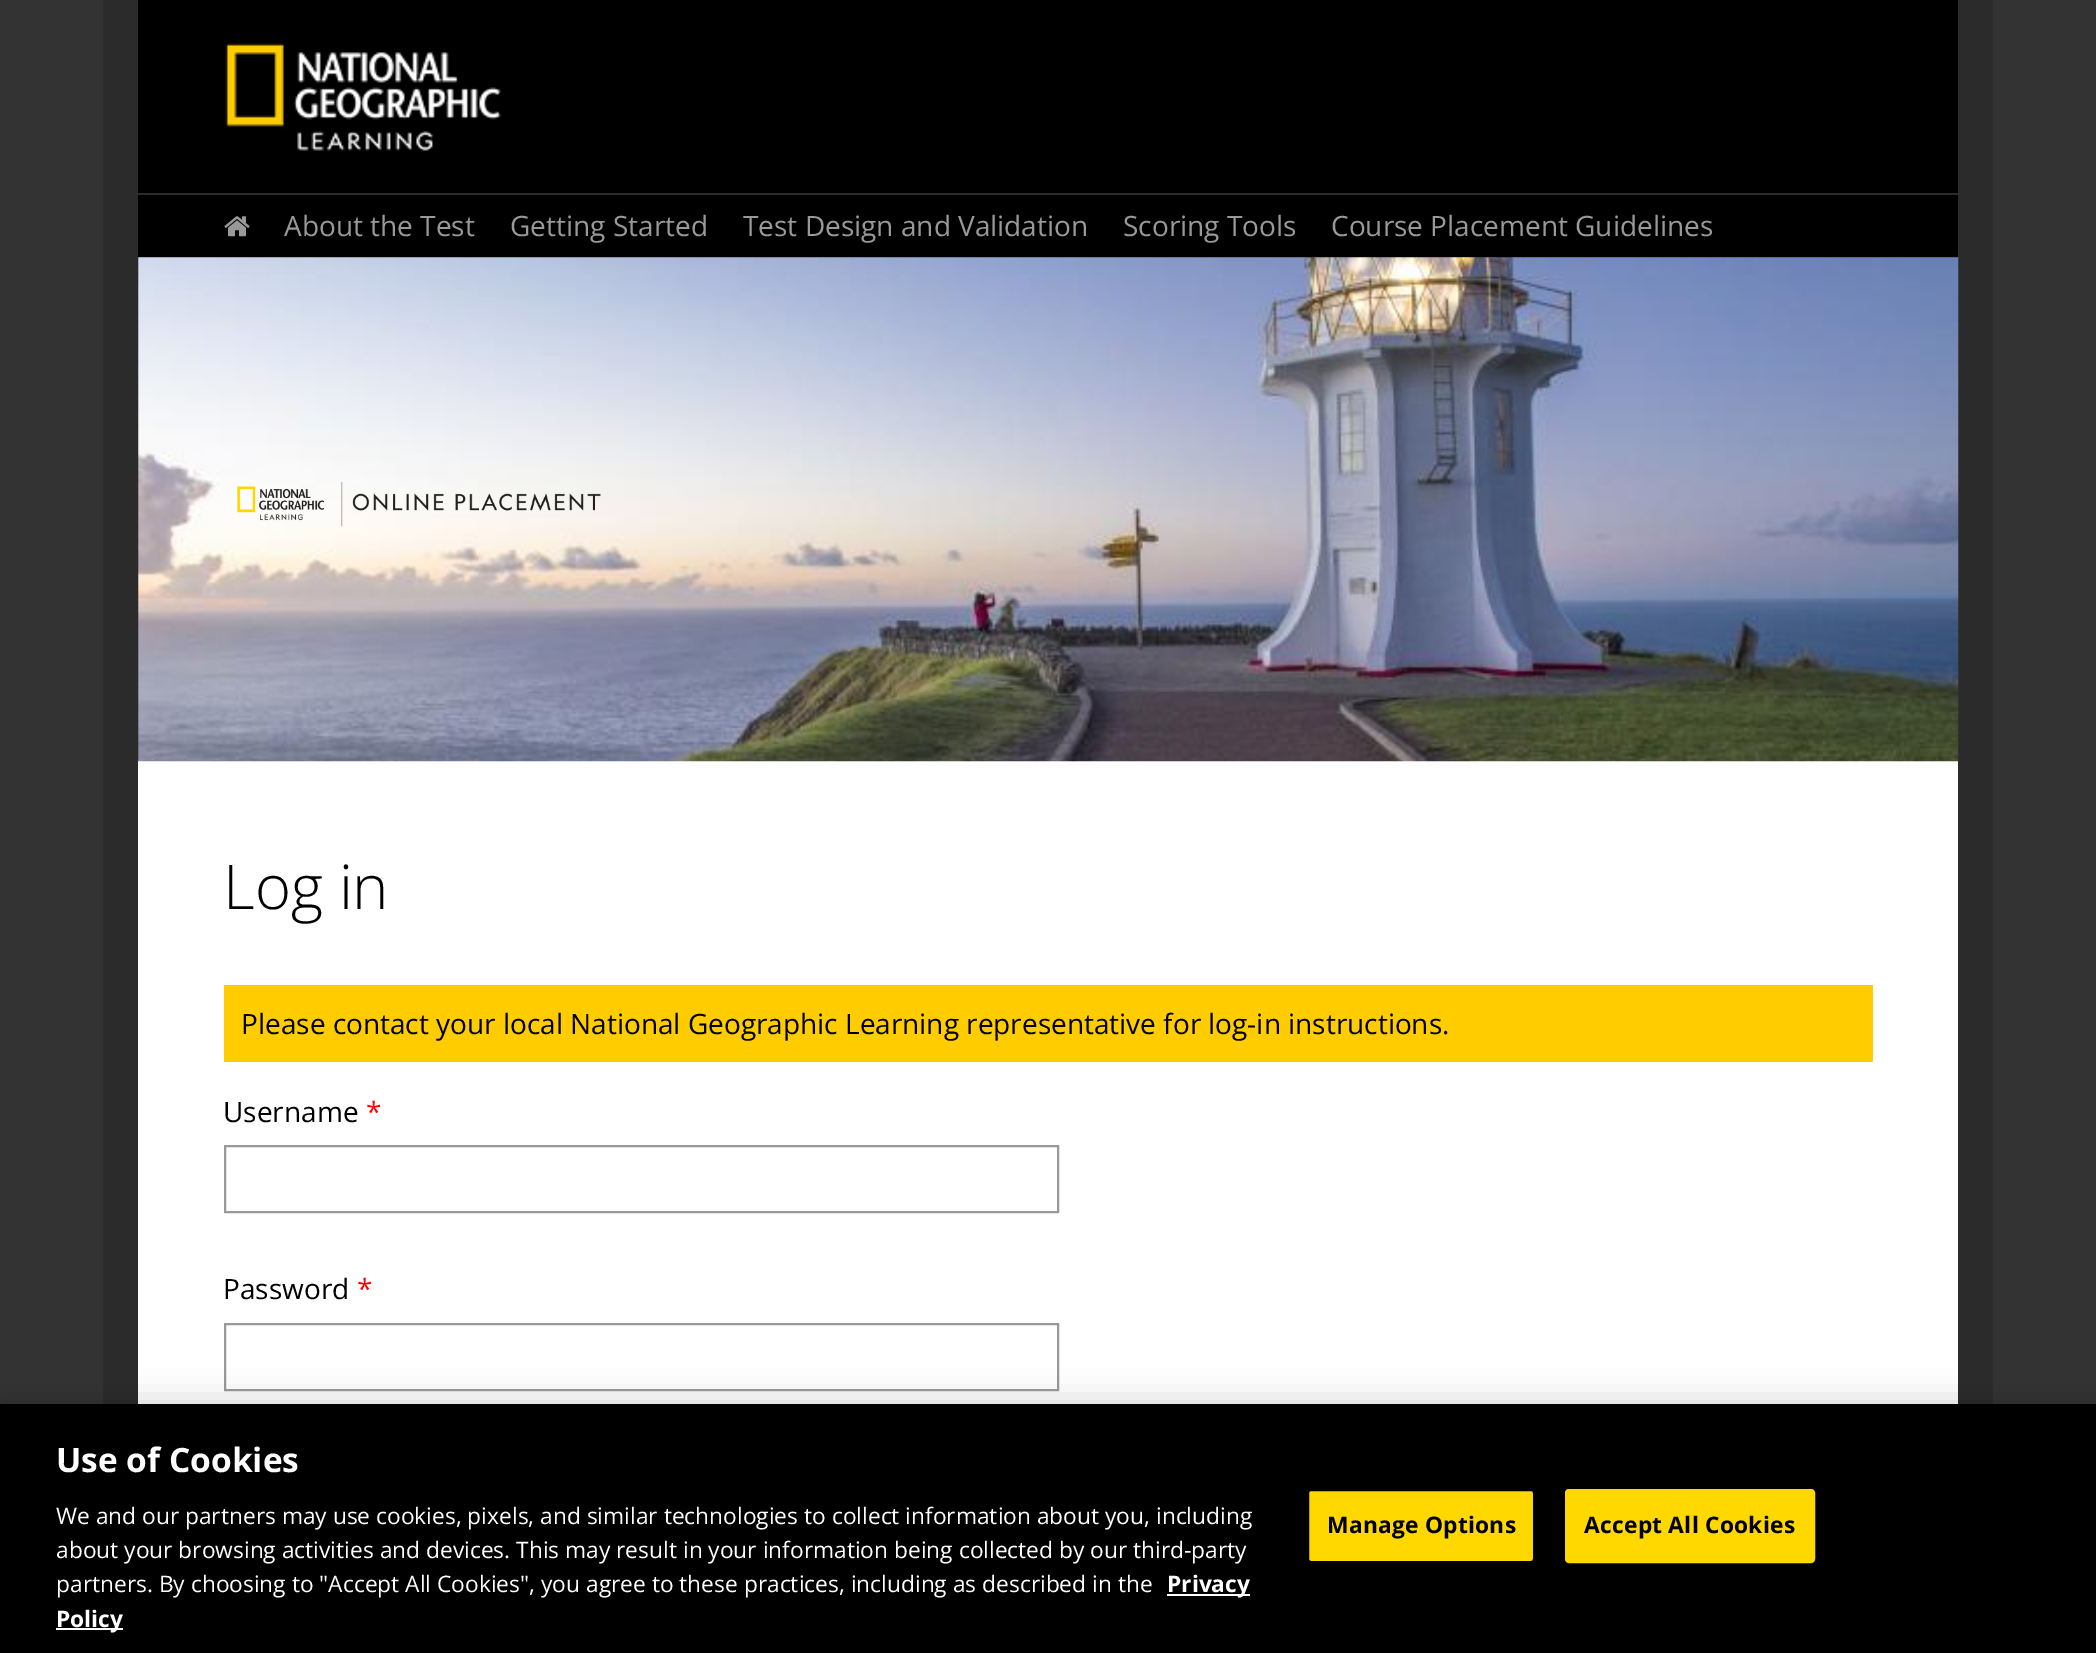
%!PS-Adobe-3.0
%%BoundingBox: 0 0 2096 1653
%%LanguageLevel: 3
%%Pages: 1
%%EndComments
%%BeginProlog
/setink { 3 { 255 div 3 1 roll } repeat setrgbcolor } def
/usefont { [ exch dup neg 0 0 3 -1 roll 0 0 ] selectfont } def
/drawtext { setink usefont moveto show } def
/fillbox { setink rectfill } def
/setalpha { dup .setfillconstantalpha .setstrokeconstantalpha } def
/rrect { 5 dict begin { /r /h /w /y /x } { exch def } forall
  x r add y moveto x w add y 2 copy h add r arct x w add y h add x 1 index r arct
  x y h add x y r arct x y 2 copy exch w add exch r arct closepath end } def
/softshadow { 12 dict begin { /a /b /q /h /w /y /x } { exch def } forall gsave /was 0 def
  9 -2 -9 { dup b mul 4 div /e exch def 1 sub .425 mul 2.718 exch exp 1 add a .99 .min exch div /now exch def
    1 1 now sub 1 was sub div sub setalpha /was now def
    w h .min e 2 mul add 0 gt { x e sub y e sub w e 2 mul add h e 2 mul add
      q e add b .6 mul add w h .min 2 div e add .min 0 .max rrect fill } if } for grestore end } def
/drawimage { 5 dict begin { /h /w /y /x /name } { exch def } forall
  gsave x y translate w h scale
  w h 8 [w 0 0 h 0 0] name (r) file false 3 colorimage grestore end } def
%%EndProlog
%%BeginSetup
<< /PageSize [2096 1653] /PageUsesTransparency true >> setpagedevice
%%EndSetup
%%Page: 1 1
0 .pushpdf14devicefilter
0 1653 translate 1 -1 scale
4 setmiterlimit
0 0 2096 1653 51 51 51 fillbox
138 761 1820 643 255 255 255 fillbox
1958 0 35 1404 43 43 43 fillbox
103 0 35 1404 43 43 43 fillbox
138 257 1820 504 26 26 26 fillbox
138 0 1820 193 0 0 0 fillbox
(assets/img1.rgb) 225 43 276 108 drawimage
138 195 1820 62 0 0 0 fillbox
138 193 1820 2 43 43 43 fillbox
(assets/img2.rgb) 224 216 26 21 drawimage
(About the Test) 284 236 /OpenSans-Regular 28 153 153 153 drawtext
(Getting Started) 510 236 /OpenSans-Regular 28 153 153 153 drawtext
(Test Design and Validation) 743 236 /OpenSans-Regular 28 153 153 153 drawtext
(Scoring Tools) 1123 236 /OpenSans-Regular 28 153 153 153 drawtext
(Course Placement Guidelines) 1331 236 /OpenSans-Regular 28 153 153 153 drawtext
(assets/img3.rgb) 138 257 1821 505 drawimage
(assets/img4.rgb) 237 482 364 45 drawimage
(Log in) 223 909 /OpenSans-Light 61.5 0 0 0 drawtext
224 985 1649 77 255 204 0 fillbox
(Please contact your local National Geographic Learning representative for log-in instructions.) 241 1034 /OpenSans-Regular 28 0 0 0 drawtext
(Username) 223 1122 /OpenSans-Regular 28 0 0 0 drawtext
(*) 366 1122 /OpenSans-Regular 28 255 0 0 drawtext
153 153 153 setink
2 setlinewidth
225 1146 833 66 rectstroke
(Password) 223 1299 /OpenSans-Regular 28 0 0 0 drawtext
(*) 357 1299 /OpenSans-Regular 28 255 0 0 drawtext
153 153 153 setink
225 1324 833 66 rectstroke
0 0 0 setink
0 1404 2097 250 0 16 0.2 softshadow
0 1404 2096 249 0 0 0 fillbox
(Use of Cookies) 56 1472 /OpenSans-Bold 33.5 255 255 255 drawtext
(We and our partners may use cookies, pixels, and similar technologies to collect information about you, including) 56 1524 /OpenSans-Regular 22.75 255 255 255 drawtext
(about your browsing activities and devices. This may result in your information being collected by our third-party) 56 1558 /OpenSans-Regular 22.75 255 255 255 drawtext
(partners. By choosing to "Accept All Cookies", you agree to these practices, including as described in the) 56 1592 /OpenSans-Regular 22.75 255 255 255 drawtext
1167 1594 83 2 255 255 255 fillbox
(Privacy) 1167 1592 /OpenSans-Bold 22.75 255 255 255 drawtext
56 1628 67 2 255 255 255 fillbox
(Policy) 56 1627 /OpenSans-Bold 22.75 255 255 255 drawtext
255 216 0 setink
1308 1490 226 72 3 rrect gsave fill grestore
0 0 0 setink
stroke
1327 1533 moveto 0.25 0 (Manage Options) ashow
255 216 0 setink
1566 1490 248 72 3 rrect gsave fill grestore
stroke
0 0 0 setink
1584 1533 moveto 0.25 0 (Accept All Cookies) ashow
.poppdf14devicefilter showpage
%%EOF
